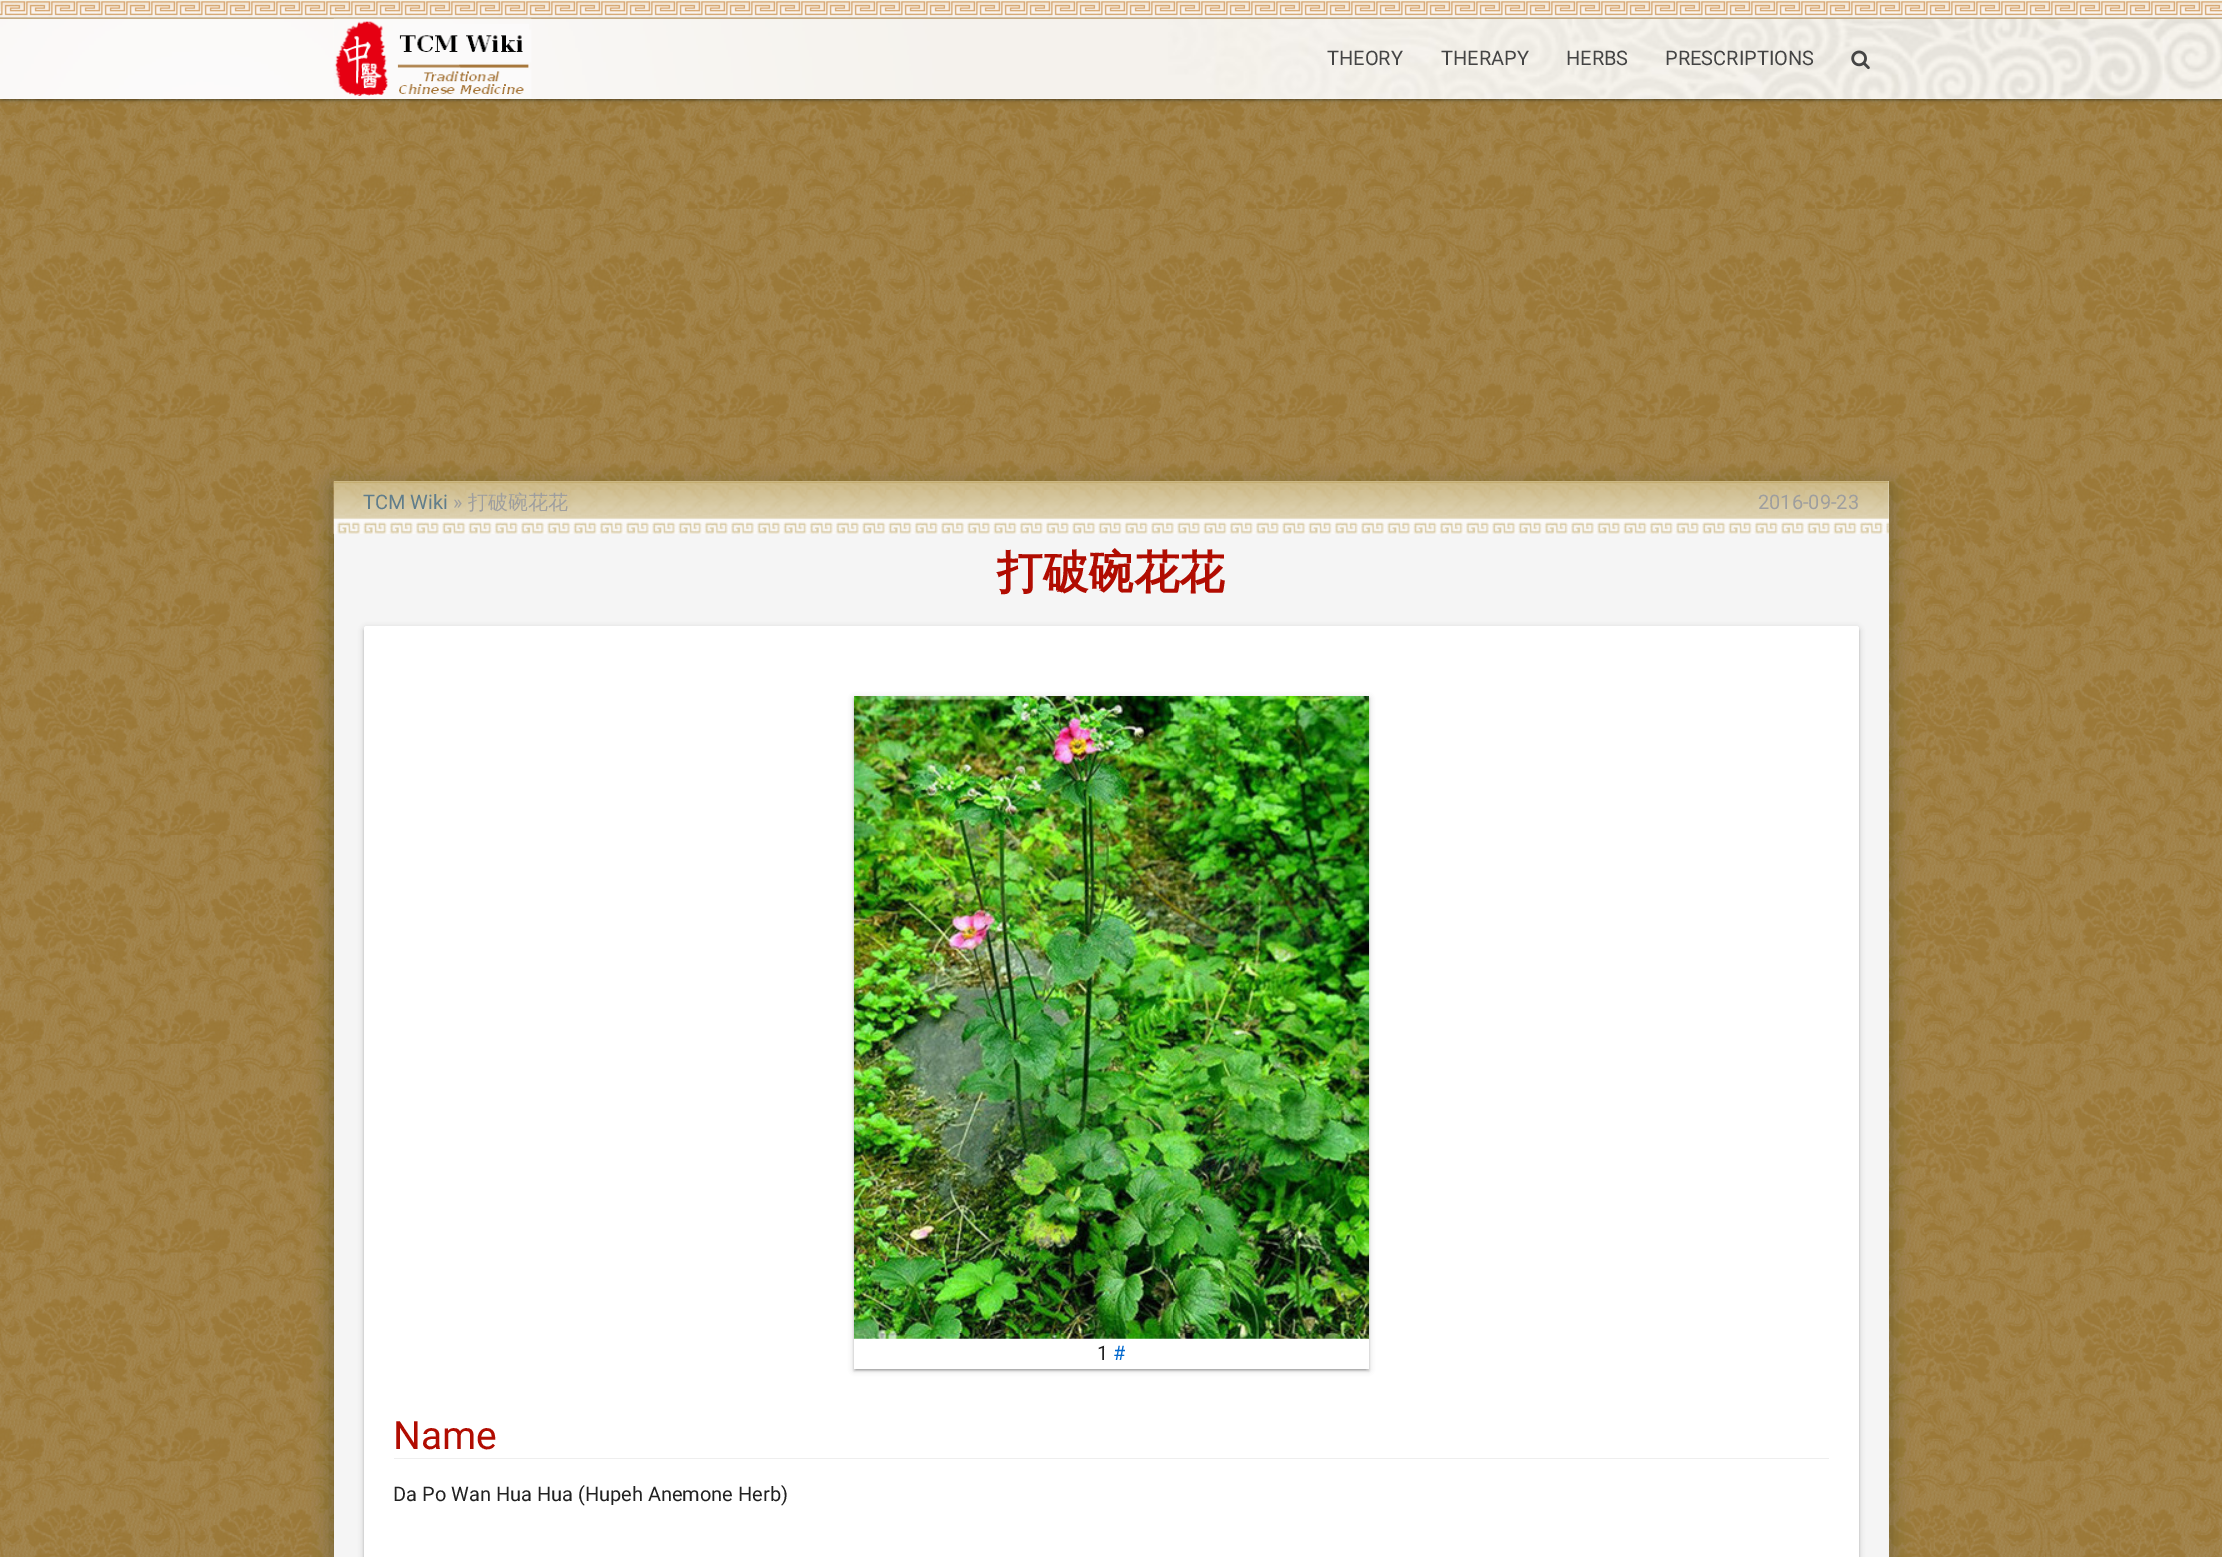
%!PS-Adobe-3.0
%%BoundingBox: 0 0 2222 1557
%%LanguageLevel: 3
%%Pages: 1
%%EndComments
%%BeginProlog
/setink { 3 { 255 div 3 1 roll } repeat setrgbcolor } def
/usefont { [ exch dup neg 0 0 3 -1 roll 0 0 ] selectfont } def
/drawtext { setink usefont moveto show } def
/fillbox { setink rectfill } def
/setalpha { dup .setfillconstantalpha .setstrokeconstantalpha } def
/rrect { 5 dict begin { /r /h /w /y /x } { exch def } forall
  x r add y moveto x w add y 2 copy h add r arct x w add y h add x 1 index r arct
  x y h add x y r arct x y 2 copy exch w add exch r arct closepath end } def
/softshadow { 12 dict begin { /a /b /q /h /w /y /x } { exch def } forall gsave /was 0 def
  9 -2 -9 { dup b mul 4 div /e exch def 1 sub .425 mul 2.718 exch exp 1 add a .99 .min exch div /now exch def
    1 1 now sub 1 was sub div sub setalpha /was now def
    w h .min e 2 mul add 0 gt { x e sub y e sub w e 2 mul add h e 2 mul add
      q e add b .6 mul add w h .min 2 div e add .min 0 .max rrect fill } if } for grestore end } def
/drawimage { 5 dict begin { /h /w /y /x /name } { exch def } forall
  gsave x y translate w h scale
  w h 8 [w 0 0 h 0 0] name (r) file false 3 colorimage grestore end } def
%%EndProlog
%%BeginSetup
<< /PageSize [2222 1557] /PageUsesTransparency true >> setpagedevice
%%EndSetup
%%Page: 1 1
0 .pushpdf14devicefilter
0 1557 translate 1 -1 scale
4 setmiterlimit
0 0 2222 1557 255 255 255 fillbox
(assets/img1.rgb) 0 18 2222 1539 drawimage
(assets/img2.rgb) 0 0 2222 19 drawimage
0 0 0 setink
0 20 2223 80 0 3 0.2 softshadow
3 25 2217 75 0 0.5 0.12 softshadow
0 21 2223 80 0 1 0.14 softshadow
(assets/img3.rgb) 0 18 2222 81 drawimage
(assets/img4.rgb) 333 18 199 80 drawimage
(THEORY) 1327 65 /Roboto-Regular 20 68 68 68 drawtext
(THERAPY) 1441 65 /Roboto-Regular 20 68 68 68 drawtext
(HERBS) 1566 65 /Roboto-Regular 20 68 68 68 drawtext
(PRESCRIPTIONS) 1665 65 /Roboto-Regular 20 68 68 68 drawtext
(assets/img5.rgb) 1851 50 19 20 drawimage
0 0 0 setink
331 483 1560 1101 0 9 0.12 softshadow
331 489 1560 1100 0 10.5 0.14 softshadow
334 481 1555 1076 245 245 245 fillbox
(assets/img6.rgb) 333 481 1556 53 drawimage
(TCM Wiki) 363 509 /Roboto-Regular 20 96 125 139 drawtext
(») 453 509 /Roboto-Regular 20 158 158 158 drawtext
(打破碗花花) 468 509 /WenQuanYiZenHei-Medium 20 158 158 158 drawtext
(2016-09-23) 1758 509 /Roboto-Regular 20 158 158 158 drawtext
(打破碗花花) 997 588 /WenQuanYiZenHei-Bold 45.5 177 12 1 drawtext
0 0 0 setink
364 628 1495 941 2.5 3 0.2 softshadow
364 629 1495 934 2.5 1 0.14 softshadow
255 255 255 setink
364 626 1495 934 2.5 rrect fill
gsave
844 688 moveto 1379 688 lineto 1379 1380 lineto 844 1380 lineto closepath 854 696 moveto 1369 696 lineto 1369 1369 lineto 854 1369 lineto closepath eoclip newpath
0 0 0 setink
854 698 515 672 0 3 0.2 softshadow
grestore
gsave
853 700 moveto 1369 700 lineto 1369 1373 lineto 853 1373 lineto closepath 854 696 moveto 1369 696 lineto 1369 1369 lineto 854 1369 lineto closepath eoclip newpath
0 0 0 setink
856 703 510 667 0 0.5 0.12 softshadow
grestore
gsave
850 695 moveto 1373 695 lineto 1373 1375 lineto 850 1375 lineto closepath 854 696 moveto 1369 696 lineto 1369 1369 lineto 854 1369 lineto closepath eoclip newpath
0 0 0 setink
854 699 515 672 0 1 0.14 softshadow
grestore
(assets/img7.rgb) 854 696 515 643 drawimage
(1) 1097 1360 /Roboto-Regular 20 33 33 33 drawtext
(#) 1113 1360 /Roboto-Regular 20 2 104 205 drawtext
394 1458 1435 1 238 238 238 fillbox
(Name) 393 1449 /Roboto-Regular 39 177 12 1 drawtext
(Da Po Wan Hua Hua \(Hupeh Anemone Herb\)) 393 1501 /Roboto-Regular 20 33 33 33 drawtext
.poppdf14devicefilter showpage
%%EOF
